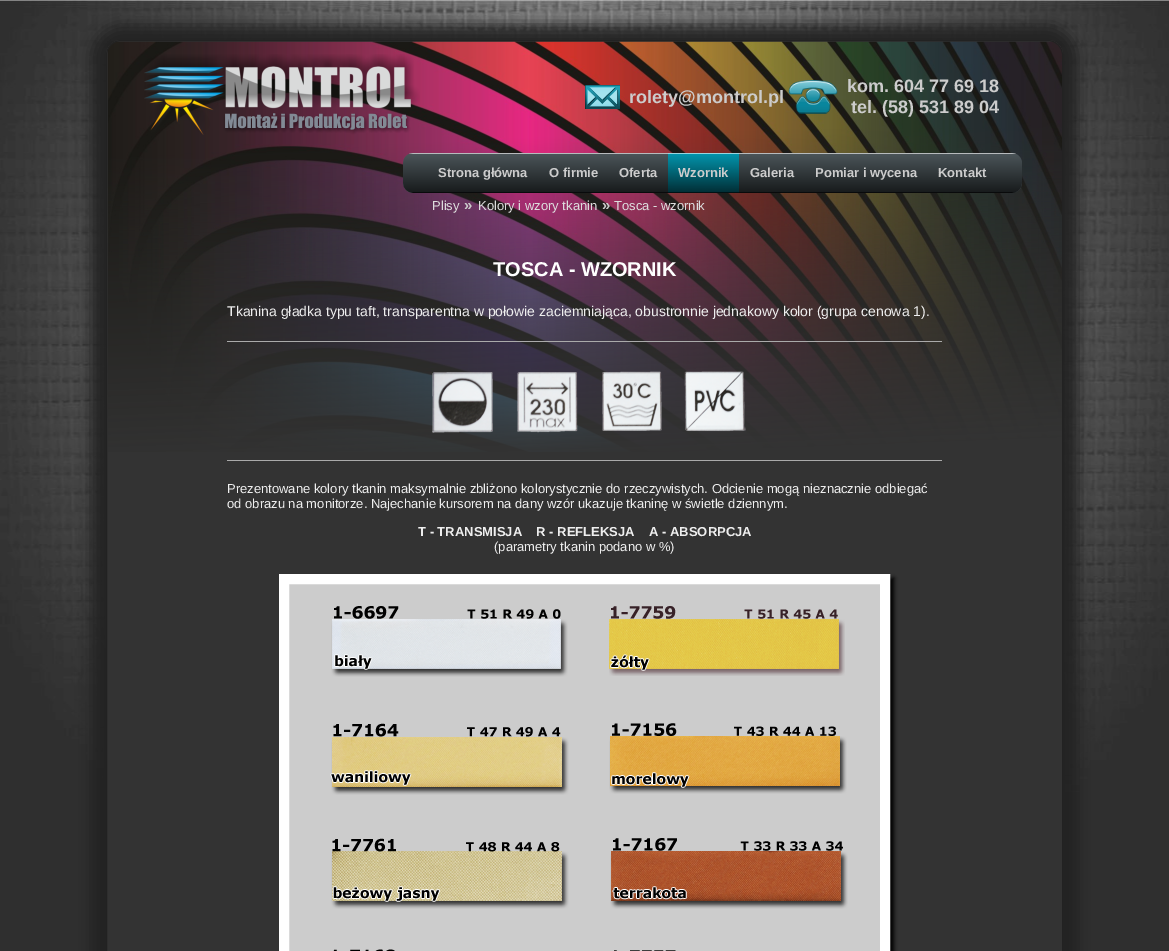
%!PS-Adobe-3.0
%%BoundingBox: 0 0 1169 951
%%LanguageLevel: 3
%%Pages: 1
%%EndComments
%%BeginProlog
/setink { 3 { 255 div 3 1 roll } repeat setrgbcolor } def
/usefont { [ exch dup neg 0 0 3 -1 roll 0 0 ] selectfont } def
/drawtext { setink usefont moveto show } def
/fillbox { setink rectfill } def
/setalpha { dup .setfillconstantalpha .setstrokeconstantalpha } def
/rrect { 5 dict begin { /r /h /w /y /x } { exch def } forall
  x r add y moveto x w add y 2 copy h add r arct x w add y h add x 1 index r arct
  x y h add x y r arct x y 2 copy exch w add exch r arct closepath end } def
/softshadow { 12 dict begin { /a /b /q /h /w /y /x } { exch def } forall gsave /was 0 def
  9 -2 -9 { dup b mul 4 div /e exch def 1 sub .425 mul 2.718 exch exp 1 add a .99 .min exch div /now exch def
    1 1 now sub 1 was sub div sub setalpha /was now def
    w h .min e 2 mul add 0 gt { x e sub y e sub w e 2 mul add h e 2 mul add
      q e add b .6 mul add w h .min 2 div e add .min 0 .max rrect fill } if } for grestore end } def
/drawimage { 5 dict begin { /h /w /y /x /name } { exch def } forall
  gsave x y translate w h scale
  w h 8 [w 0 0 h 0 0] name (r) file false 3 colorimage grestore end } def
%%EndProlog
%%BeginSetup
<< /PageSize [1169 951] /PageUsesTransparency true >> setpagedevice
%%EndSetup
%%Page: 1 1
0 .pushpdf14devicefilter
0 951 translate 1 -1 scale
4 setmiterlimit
0 0 1169 951 255 255 255 fillbox
(assets/img1.rgb) 0 0 1169 951 drawimage
34 34 34 setink
91 25 987 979 30 7.5 1 softshadow
51 51 51 setink
106 40 957 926 15 rrect fill
(assets/img2.rgb) 107 41 955 411 drawimage
34 34 34 setink
106.5 40.5 956 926 14.5 rrect stroke
(assets/img3.rgb) 144 54 276 81 drawimage
(assets/img4.rgb) 585 85 35 24 drawimage
(rolety@montrol.pl) 629 103 /LiberationSans-Bold 18 204 204 204 drawtext
(assets/img5.rgb) 788 80 50 34 drawimage
(kom. 604 77 69 18) 847 92 /LiberationSans-Bold 18 204 204 204 drawtext
(tel. \(58\) 531 89 04) 851 113 /LiberationSans-Bold 18 204 204 204 drawtext
75 85 89 setink
403 153 619 40 10 rrect fill
(assets/img6.rgb) 403 153 619 40 drawimage
(Strona główna) 438 177 /LiberationSans-Bold 13 204 204 204 drawtext
(O firmie) 549 177 /LiberationSans-Bold 13 204 204 204 drawtext
(Oferta) 619 177 /LiberationSans-Bold 13 204 204 204 drawtext
668 153 71 40 2 149 173 fillbox
(assets/img7.rgb) 668 153 71 40 drawimage
(Wzornik) 678 177 /LiberationSans-Bold 13 204 204 204 drawtext
(Galeria) 750 177 /LiberationSans-Bold 13 204 204 204 drawtext
(Pomiar i wycena) 815 177 /LiberationSans-Bold 13 204 204 204 drawtext
(Kontakt) 938 177 /LiberationSans-Bold 13 204 204 204 drawtext
(Plisy) 432 210 /LiberationSans-Regular 13 221 221 221 drawtext
(») 464 210 /LiberationSans-Bold 15 204 204 204 drawtext
(Kolory i wzory tkanin) 478 210 /LiberationSans-Regular 13 221 221 221 drawtext
(») 602 210 /LiberationSans-Bold 15 204 204 204 drawtext
(Tosca - wzornik) 614 210 /LiberationSans-Regular 13 221 221 221 drawtext
(TOSCA - WZORNIK) 493 276 /LiberationSans-Bold 20 255 255 255 drawtext
(Tkanina gładka typu taft, transparentna w połowie zaciemniająca, obustronnie jednakowy kolor \(grupa cenowa 1\).) 227 316 /LiberationSans-Regular 14 238 238 238 drawtext
227 341 715 1 170 170 170 fillbox
227 460 715 1 170 170 170 fillbox
(assets/img8.rgb) 432 371 314 62 drawimage
(Prezentowane kolory tkanin maksymalnie zbliżono kolorystycznie do rzeczywistych. Odcienie mogą nieznacznie odbiegać) 227 493 /LiberationSans-Regular 13 238 238 238 drawtext
(od obrazu na monitorze. Najechanie kursorem na dany wzór ukazuje tkaninę w świetle dziennym.) 227 508 /LiberationSans-Regular 13 238 238 238 drawtext
(T - TRANSMISJA    R - REFLEKSJA    A - ABSORPCJA) 418 536 /LiberationSans-Bold 13 238 238 238 drawtext
(\(parametry tkanin podano w %\)) 494 551 /LiberationSans-Regular 13 238 238 238 drawtext
0 0 0 setink
283 578 611 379 0 2 1 softshadow
204 204 204 setink
284 579 moveto 885 579 lineto 885 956 lineto 284 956 lineto closepath gsave fill grestore
255 255 255 setink
10 setlinewidth
stroke
(assets/img9.rgb) 331 606 237 71 drawimage
(assets/img10.rgb) 609 606 236 70 drawimage
(assets/img11.rgb) 330 723 239 72 drawimage
(assets/img12.rgb) 609 723 238 71 drawimage
(assets/img13.rgb) 331 838 238 71 drawimage
(assets/img14.rgb) 610 838 238 71 drawimage
(assets/img15.rgb) 333 949 62 2 drawimage
(assets/img16.rgb) 614 950 62 1 drawimage
.poppdf14devicefilter showpage
%%EOF
